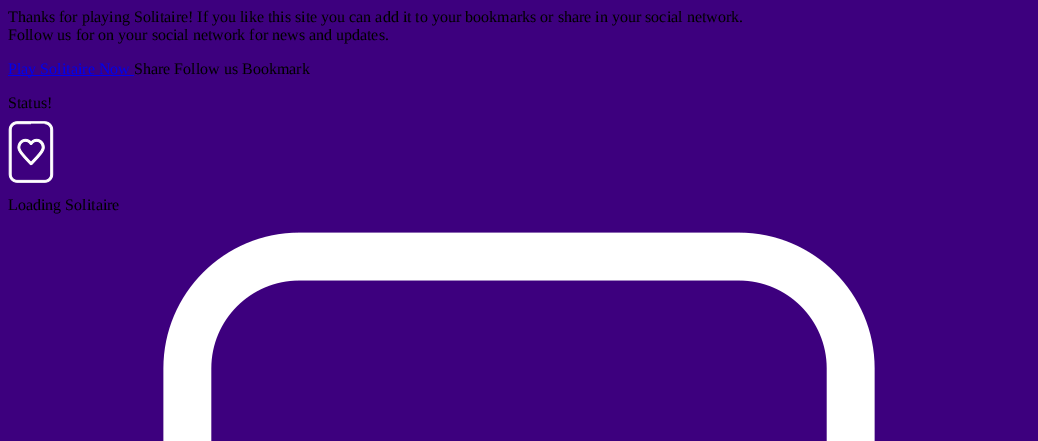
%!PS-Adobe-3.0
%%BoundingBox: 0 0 1038 441
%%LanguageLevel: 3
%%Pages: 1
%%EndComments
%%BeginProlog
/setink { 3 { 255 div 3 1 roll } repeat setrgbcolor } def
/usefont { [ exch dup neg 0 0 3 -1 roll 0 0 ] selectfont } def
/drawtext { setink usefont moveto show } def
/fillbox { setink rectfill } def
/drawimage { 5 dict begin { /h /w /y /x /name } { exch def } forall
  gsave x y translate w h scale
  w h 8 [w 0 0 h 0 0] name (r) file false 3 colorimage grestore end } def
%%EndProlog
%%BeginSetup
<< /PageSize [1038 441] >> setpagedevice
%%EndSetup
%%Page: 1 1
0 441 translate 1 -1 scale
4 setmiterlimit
0 0 1038 441 61 0 126 fillbox
(Thanks for playing Solitaire! If you like this site you can add it to your bookmarks or share in your social network.) 8 22 /LiberationSerif-Regular 16 0 0 0 drawtext
(Follow us for on your social network for news and updates.) 8 40 /LiberationSerif-Regular 16 0 0 0 drawtext
8 75 126 1 0 0 238 fillbox
(Play Solitaire Now) 8 74 /LiberationSerif-Regular 16 0 0 238 drawtext
(Share Follow us Bookmark) 134 74 /LiberationSerif-Regular 16 0 0 0 drawtext
(Status!) 8 108 /LiberationSerif-Regular 16 0 0 0 drawtext
(assets/img1.rgb) 8 121 46 62 drawimage
(Loading Solitaire) 8 210 /LiberationSerif-Regular 16 0 0 0 drawtext
(assets/img2.rgb) 163 232 712 209 drawimage
showpage
%%EOF
